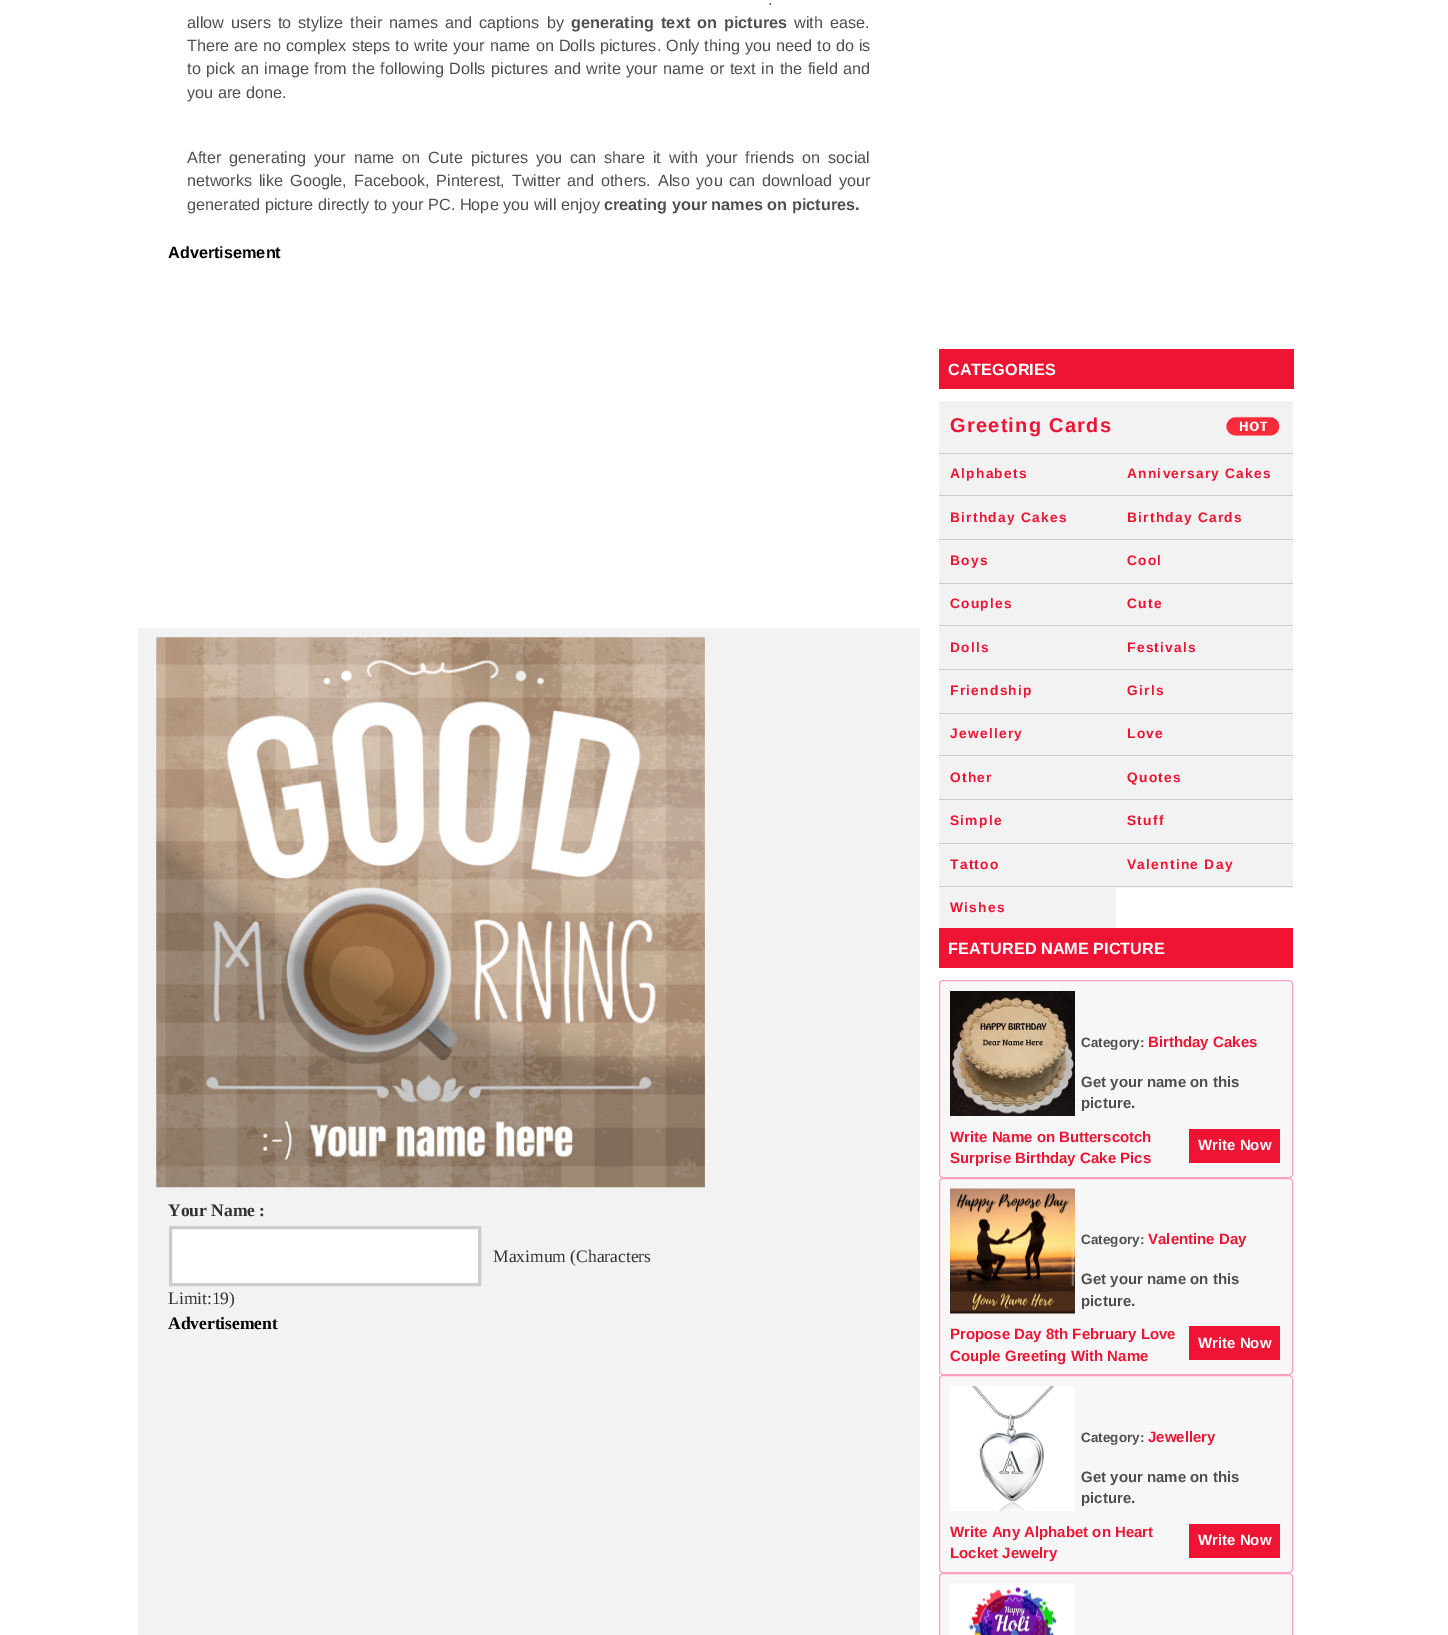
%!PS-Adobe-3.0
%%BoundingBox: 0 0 1448 1635
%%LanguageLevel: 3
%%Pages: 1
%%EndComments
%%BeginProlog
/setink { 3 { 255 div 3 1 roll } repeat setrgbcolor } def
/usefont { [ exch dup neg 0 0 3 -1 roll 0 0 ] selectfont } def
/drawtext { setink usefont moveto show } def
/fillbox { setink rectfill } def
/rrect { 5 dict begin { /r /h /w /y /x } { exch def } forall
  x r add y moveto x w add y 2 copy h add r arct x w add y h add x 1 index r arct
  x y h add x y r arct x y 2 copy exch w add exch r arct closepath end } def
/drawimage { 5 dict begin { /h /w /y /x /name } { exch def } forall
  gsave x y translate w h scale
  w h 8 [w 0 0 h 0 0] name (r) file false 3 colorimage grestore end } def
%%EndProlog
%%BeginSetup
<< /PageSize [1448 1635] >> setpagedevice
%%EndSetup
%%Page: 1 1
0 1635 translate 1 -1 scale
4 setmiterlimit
0 0 1448 1635 255 255 255 fillbox
/LiberationSans-Regular 16.25 usefont
79 79 79 setink
768 5 moveto 2.25 0 32 (.) widthshow
187 28 moveto 2.5 0 32 (allow users to stylize their names and captions by) widthshow
/LiberationSans-Bold 16.25 usefont
571 28 moveto 2.5 0 32 (generating text on) widthshow
(pictures) 724 28 /LiberationSans-Bold 16.25 79 79 79 drawtext
/LiberationSans-Regular 16.25 usefont
794 28 moveto 2.5 0 32 (with ease.) widthshow
187 51 moveto 0.5 0 32 (There are no complex steps to write your name on Dolls pictures.) widthshow
666 51 moveto 0.5 0 32 (Only thing you need to do is) widthshow
187 74 moveto 1.1 0 32 (to pick an image from the following Dolls pictures and write your name or text in the field and) widthshow
(you are done.) 187 98 /LiberationSans-Regular 16.25 79 79 79 drawtext
187 163 moveto 3.5 0 32 (After generating your name on Cute pictures you can share it with your friends on social) widthshow
187 186 moveto 2.25 0 32 (networks like Google, Facebook, Pinterest, Twitter and others.) widthshow
658 186 moveto 2.25 0 32 (Also you can download your) widthshow
(generated picture directly to your PC. Hope you will enjoy) 187 210 /LiberationSans-Regular 16.25 79 79 79 drawtext
(creating your names on pictures.) 604 210 /LiberationSans-Bold 16.25 79 79 79 drawtext
(Advertisement) 168 258 /LiberationSans-Bold 16.25 0 0 0 drawtext
138 628 782 1007 242 242 242 fillbox
(assets/img1.rgb) 156 637 549 551 drawimage
(Your Name :) 168 1216 /LiberationSerif-Bold 17.5 51 51 51 drawtext
255 255 255 setink
170.5 1227.5 moveto 479.5 1227.5 lineto 479.5 1284.5 lineto 170.5 1284.5 lineto closepath gsave fill grestore
204 204 204 setink
3 setlinewidth
stroke
(Maximum \(Characters) 493 1262 /LiberationSerif-Regular 17.5 51 51 51 drawtext
(Limit:19\)) 168 1304 /LiberationSerif-Regular 17.5 51 51 51 drawtext
(Advertisement) 168 1329 /LiberationSerif-Bold 17.5 0 0 0 drawtext
939 349 355 40 239 20 51 fillbox
(CATEGORIES) 948 375 /LiberationSans-Bold 16.25 255 255 255 drawtext
939 401 354 52 242 242 242 fillbox
939 453 354 1 204 204 204 fillbox
/LiberationSans-Bold 20 usefont
239 20 51 setink
950 432 moveto 1.25 0 (Greeting Cards) ashow
(assets/img2.rgb) 1226 416 54 20 drawimage
939 454 354 41 242 242 242 fillbox
939 495 354 1 204 204 204 fillbox
/LiberationSans-Bold 13.75 usefont
239 20 51 setink
950 478 moveto 1.25 0 (Alphabets) ashow
1127 478 moveto 1.25 0 (Anniversary Cakes) ashow
939 496 354 43 242 242 242 fillbox
939 539 354 1 204 204 204 fillbox
239 20 51 setink
950 522 moveto 1.25 0 (Birthday Cakes) ashow
1127 522 moveto 1.25 0 (Birthday Cards) ashow
939 540 354 43 242 242 242 fillbox
939 583 354 1 204 204 204 fillbox
239 20 51 setink
950 565 moveto 1.25 0 (Boys) ashow
1127 565 moveto 1.25 0 (Cool) ashow
939 584 354 41 242 242 242 fillbox
939 625 354 1 204 204 204 fillbox
239 20 51 setink
950 608 moveto 1.25 0 (Couples) ashow
1127 608 moveto 1.25 0 (Cute) ashow
939 626 354 43 242 242 242 fillbox
939 669 354 1 204 204 204 fillbox
239 20 51 setink
950 652 moveto 1.25 0 (Dolls) ashow
1127 652 moveto 1.25 0 (Festivals) ashow
939 670 354 43 242 242 242 fillbox
939 713 354 1 204 204 204 fillbox
239 20 51 setink
950 695 moveto 1.25 0 (Friendship) ashow
1127 695 moveto 1.25 0 (Girls) ashow
939 714 354 41 242 242 242 fillbox
939 755 354 1 204 204 204 fillbox
239 20 51 setink
950 738 moveto 1.25 0 (Jewellery) ashow
1127 738 moveto 1.25 0 (Love) ashow
939 756 354 43 242 242 242 fillbox
939 799 354 1 204 204 204 fillbox
239 20 51 setink
950 782 moveto 1.25 0 (Other) ashow
1127 782 moveto 1.25 0 (Quotes) ashow
939 800 354 43 242 242 242 fillbox
939 843 354 1 204 204 204 fillbox
239 20 51 setink
950 825 moveto 1.25 0 (Simple) ashow
1127 825 moveto 1.25 0 (Stuff) ashow
939 844 354 44 242 242 242 fillbox
939 886 354 1 204 204 204 fillbox
239 20 51 setink
950 869 moveto 1.25 0 (Tattoo) ashow
1127 869 moveto 1.25 0 (Valentine Day) ashow
939 888 177 40 242 242 242 fillbox
239 20 51 setink
950 912 moveto 1.25 0 (Wishes) ashow
939 928 354 40 239 20 51 fillbox
(FEATURED NAME PICTURE) 948 954 /LiberationSans-Bold 16.25 255 255 255 drawtext
247 247 247 setink
939.5 980.5 353 197 3.5 rrect gsave fill grestore
255 160 191 setink
1 setlinewidth
stroke
(Category:) 1081 1047 /LiberationSans-Bold 13.5 79 79 79 drawtext
(Birthday Cakes) 1148 1047 /LiberationSans-Bold 15 239 20 51 drawtext
(Get your name on this) 1081 1087 /LiberationSans-Bold 15 79 79 79 drawtext
(picture.) 1081 1108 /LiberationSans-Bold 15 79 79 79 drawtext
(assets/img3.rgb) 950 991 125 125 drawimage
(Write Name on Butterscotch) 950 1142 /LiberationSans-Bold 15 239 20 51 drawtext
(Surprise Birthday Cake Pics) 950 1163 /LiberationSans-Bold 15 239 20 51 drawtext
1189 1129 91 34 239 20 51 fillbox
(Write Now) 1198 1150 /LiberationSans-Bold 15 255 255 255 drawtext
247 247 247 setink
939.5 1178.5 353 196 3.5 rrect gsave fill grestore
255 160 191 setink
stroke
(Category:) 1081 1244 /LiberationSans-Bold 13.5 79 79 79 drawtext
(Valentine Day) 1148 1244 /LiberationSans-Bold 15 239 20 51 drawtext
(Get your name on this) 1081 1284 /LiberationSans-Bold 15 79 79 79 drawtext
(picture.) 1081 1306 /LiberationSans-Bold 15 79 79 79 drawtext
(assets/img4.rgb) 950 1188 125 126 drawimage
(Propose Day 8th February Love) 950 1339 /LiberationSans-Bold 15 239 20 51 drawtext
(Couple Greeting With Name) 950 1361 /LiberationSans-Bold 15 239 20 51 drawtext
1189 1326 91 34 239 20 51 fillbox
(Write Now) 1198 1348 /LiberationSans-Bold 15 255 255 255 drawtext
247 247 247 setink
939.5 1375.5 353 197 3.5 rrect gsave fill grestore
255 160 191 setink
stroke
(Category:) 1081 1442 /LiberationSans-Bold 13.5 79 79 79 drawtext
(Jewellery) 1148 1442 /LiberationSans-Bold 15 239 20 51 drawtext
(Get your name on this) 1081 1482 /LiberationSans-Bold 15 79 79 79 drawtext
(picture.) 1081 1503 /LiberationSans-Bold 15 79 79 79 drawtext
(assets/img5.rgb) 950 1386 125 125 drawimage
(Write Any Alphabet on Heart) 950 1537 /LiberationSans-Bold 15 239 20 51 drawtext
(Locket Jewelry) 950 1558 /LiberationSans-Bold 15 239 20 51 drawtext
1189 1524 91 34 239 20 51 fillbox
(Write Now) 1198 1545 /LiberationSans-Bold 15 255 255 255 drawtext
247 247 247 setink
939.5 1573.5 353 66 3.5 rrect gsave fill grestore
255 160 191 setink
stroke
(assets/img6.rgb) 950 1583 125 52 drawimage
showpage
%%EOF
